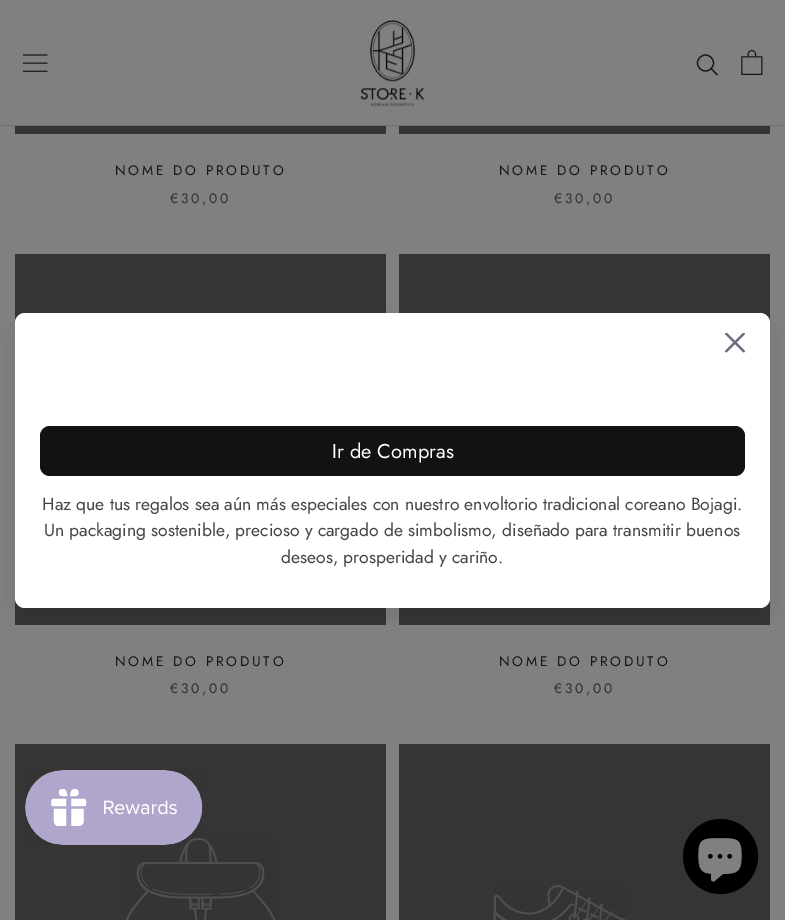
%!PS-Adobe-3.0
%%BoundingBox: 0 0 785 920
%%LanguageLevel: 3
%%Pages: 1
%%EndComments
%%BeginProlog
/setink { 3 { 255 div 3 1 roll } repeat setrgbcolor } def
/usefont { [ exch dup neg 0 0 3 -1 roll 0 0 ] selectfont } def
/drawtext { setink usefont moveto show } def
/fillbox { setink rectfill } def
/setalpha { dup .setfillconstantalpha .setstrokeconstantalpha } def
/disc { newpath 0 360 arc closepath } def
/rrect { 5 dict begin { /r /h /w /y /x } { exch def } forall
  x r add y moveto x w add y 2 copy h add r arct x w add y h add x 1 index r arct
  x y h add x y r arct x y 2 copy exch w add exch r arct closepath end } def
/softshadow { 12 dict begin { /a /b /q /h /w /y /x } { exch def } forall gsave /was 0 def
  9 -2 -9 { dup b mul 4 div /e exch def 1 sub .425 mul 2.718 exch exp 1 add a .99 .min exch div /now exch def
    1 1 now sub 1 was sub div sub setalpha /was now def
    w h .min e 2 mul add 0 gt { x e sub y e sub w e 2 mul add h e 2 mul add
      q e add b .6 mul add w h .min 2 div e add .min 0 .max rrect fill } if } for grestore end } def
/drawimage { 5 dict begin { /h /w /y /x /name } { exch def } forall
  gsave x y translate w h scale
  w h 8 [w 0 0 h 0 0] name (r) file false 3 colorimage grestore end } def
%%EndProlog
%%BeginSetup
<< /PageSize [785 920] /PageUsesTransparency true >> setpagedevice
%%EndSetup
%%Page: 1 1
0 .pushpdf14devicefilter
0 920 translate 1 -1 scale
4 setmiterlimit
0 0 785 920 128 128 128 fillbox
0 125 785 1 112 112 112 fillbox
(assets/img1.rgb) 23 54 25 18 drawimage
(assets/img2.rgb) 360 20 65 87 drawimage
gsave
696 54 23 21 rectclip
24 24 24 setink
1.2 setlinewidth
2 setlinecap
717.5 75 moveto 711 68.5 lineto stroke
grestore
24 24 24 setink
1.2 setlinewidth
705.5 63 8 disc stroke
(assets/img3.rgb) 741 50 22 25 drawimage
15 126 371 8 53 53 53 fillbox
/Jost-Regular 13.75 usefont
24 24 24 setink
115 175 moveto 2.75 0 (NOME DO PRODUTO) ashow
45 45 45 setink
170 203 moveto 2.75 0 (€30,00) ashow
399 126 371 8 53 53 53 fillbox
24 24 24 setink
499 175 moveto 2.75 0 (NOME DO PRODUTO) ashow
45 45 45 setink
554 203 moveto 2.75 0 (€30,00) ashow
15 254 371 371 53 53 53 fillbox
24 24 24 setink
115 666 moveto 2.75 0 (NOME DO PRODUTO) ashow
45 45 45 setink
170 693 moveto 2.75 0 (€30,00) ashow
399 254 371 371 53 53 53 fillbox
24 24 24 setink
499 666 moveto 2.75 0 (NOME DO PRODUTO) ashow
45 45 45 setink
554 693 moveto 2.75 0 (€30,00) ashow
15 744 371 176 53 53 53 fillbox
(assets/img4.rgb) 126 838 150 82 drawimage
399 744 371 176 53 53 53 fillbox
(assets/img5.rgb) 493 885 134 35 drawimage
gsave
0 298 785 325 rectclip
18 17 39 setink
15 323 755 295 10 12.5 0.1 softshadow
grestore
255 255 255 setink
15 313 755 295 10 rrect fill
(assets/img6.rgb) 725 333 20 20 drawimage
18 18 18 setink
40 426 705 50 10 rrect fill
(Ir de Compras) 332 458 /Jost-Regular 20 255 255 255 drawtext
(Haz que tus regalos sea aún más especiales con nuestro envoltorio tradicional coreano Bojagi.) 42 510 /Jost-Regular 17.5 69 69 69 drawtext
(Un packaging sostenible, precioso y cargado de simbolismo, diseñado para transmitir buenos) 44 536 /Jost-Regular 17.5 69 69 69 drawtext
(deseos, prosperidad y cariño.) 281 563 /Jost-Regular 17.5 69 69 69 drawtext
(assets/img7.rgb) 25 770 178 75 drawimage
0 0 0 setink
720.5 856.5 37.5 disc fill
(assets/img8.rgb) 698 838 44 44 drawimage
.poppdf14devicefilter showpage
%%EOF
